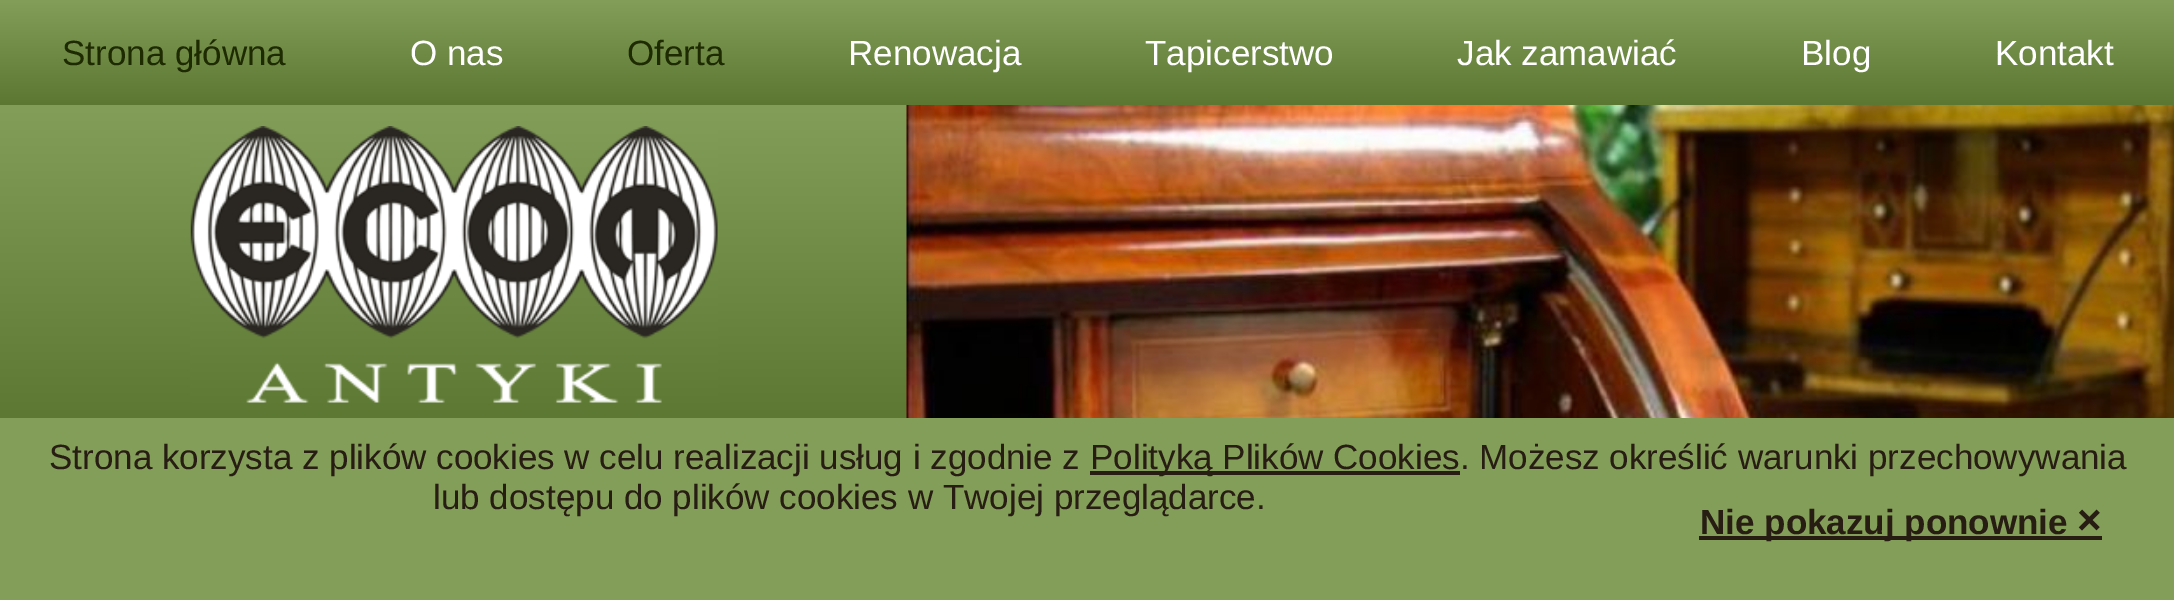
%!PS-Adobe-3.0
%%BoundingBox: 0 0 2174 600
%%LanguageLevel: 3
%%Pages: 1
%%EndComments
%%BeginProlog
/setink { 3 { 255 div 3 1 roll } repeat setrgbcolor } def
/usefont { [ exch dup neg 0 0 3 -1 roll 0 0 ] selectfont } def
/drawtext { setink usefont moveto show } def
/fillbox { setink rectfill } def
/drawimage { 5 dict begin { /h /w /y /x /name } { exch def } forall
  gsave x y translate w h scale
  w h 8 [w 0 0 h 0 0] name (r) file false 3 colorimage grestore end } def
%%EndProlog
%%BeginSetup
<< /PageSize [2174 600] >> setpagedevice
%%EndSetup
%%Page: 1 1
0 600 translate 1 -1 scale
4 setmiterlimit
0 0 2174 600 255 255 255 fillbox
gsave 0 0 moveto 2174 0 lineto 2174 105 lineto 0 105 lineto closepath clip newpath
<< /ShadingType 2 /ColorSpace /DeviceRGB /Coords [1088 0 1088 105] /Extend [true true] /Function << /FunctionType 2 /Domain [0 1] /C0 [0.514 0.62 0.349] /C1 [0.361 0.467 0.196] /N 1 >> >> shfill grestore
(Strona główna) 62 65 /LiberationSans-Regular 35 30 43 0 drawtext
(O nas) 410 65 /LiberationSans-Regular 35 255 255 255 drawtext
(Oferta) 627 65 /LiberationSans-Regular 35 30 43 0 drawtext
(Renowacja) 848 65 /LiberationSans-Regular 35 255 255 255 drawtext
(Tapicerstwo) 1145 65 /LiberationSans-Regular 35 255 255 255 drawtext
(Jak zamawiać) 1457 65 /LiberationSans-Regular 35 255 255 255 drawtext
(Blog) 1801 65 /LiberationSans-Regular 35 255 255 255 drawtext
(Kontakt) 1995 65 /LiberationSans-Regular 35 255 255 255 drawtext
gsave 0 105 moveto 907 105 lineto 907 418 lineto 0 418 lineto closepath clip newpath
<< /ShadingType 2 /ColorSpace /DeviceRGB /Coords [453 105 453 425] /Extend [true true] /Function << /FunctionType 2 /Domain [0 1] /C0 [0.514 0.62 0.349] /C1 [0.361 0.467 0.196] /N 1 >> >> shfill grestore
(assets/img1.rgb) 190 126 528 277 drawimage
(assets/img2.rgb) 906 105 1268 313 drawimage
0 418 2174 182 131 158 89 fillbox
(Strona korzysta z plików cookies w celu realizacji usług i zgodnie z) 49 469 /LiberationSans-Regular 35 39 29 19 drawtext
1090 471 370 4 39 29 19 fillbox
(Polityką Plików Cookies. Możesz określić warunki przechowywania) 1090 469 /LiberationSans-Regular 35 39 29 19 drawtext
(lub dostępu do plików cookies w Twojej przeglądarce.) 433 509 /LiberationSans-Regular 35 39 29 19 drawtext
1699 536 403 4 39 29 19 fillbox
(Nie pokazuj ponownie) 1700 534 /LiberationSans-Bold 35 39 29 19 drawtext
(×) 2077 534 /LiberationSans-Bold 42 39 29 19 drawtext
showpage
%%EOF
